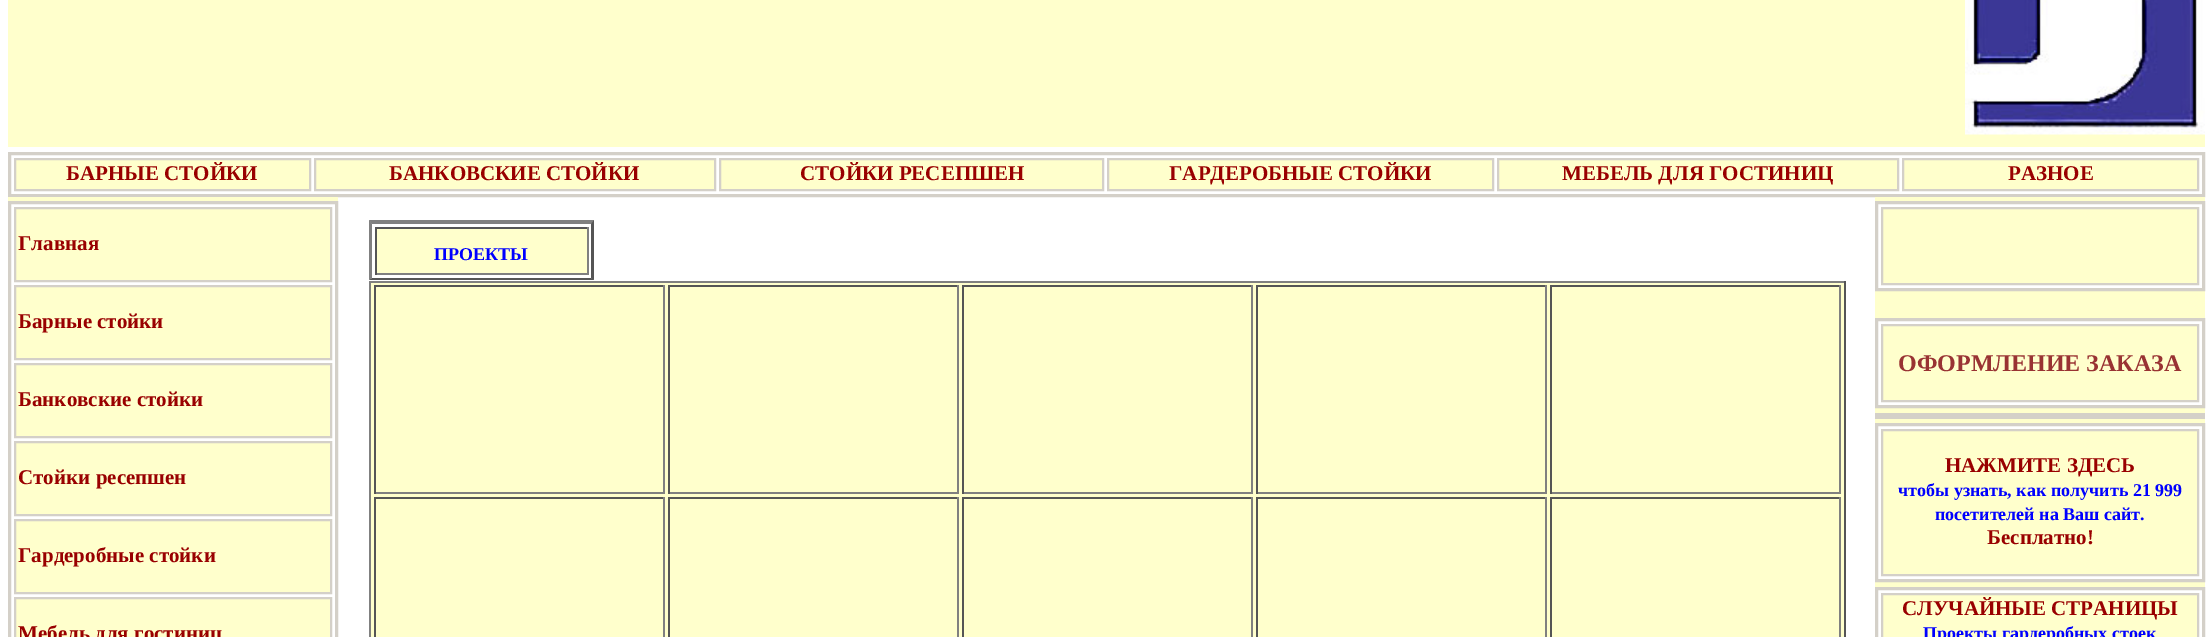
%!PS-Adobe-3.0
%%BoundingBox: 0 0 2212 637
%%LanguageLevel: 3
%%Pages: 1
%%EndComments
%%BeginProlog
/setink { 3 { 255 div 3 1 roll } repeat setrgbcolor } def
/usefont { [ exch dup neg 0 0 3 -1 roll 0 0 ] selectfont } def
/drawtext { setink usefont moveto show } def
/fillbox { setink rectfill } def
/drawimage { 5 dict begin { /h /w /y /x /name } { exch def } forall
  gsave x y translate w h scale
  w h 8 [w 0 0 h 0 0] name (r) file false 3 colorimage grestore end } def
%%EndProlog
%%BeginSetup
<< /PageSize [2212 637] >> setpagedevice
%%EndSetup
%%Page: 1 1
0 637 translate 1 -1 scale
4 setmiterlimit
0 0 2212 637 255 255 255 fillbox
8 0 1957 147 255 255 204 fillbox
1965 134 240 13 255 255 204 fillbox
(assets/img1.rgb) 1965 0 240 135 drawimage
212 208 200 setink
3 setlinewidth
9.5 153.5 2194 42 rectstroke
255 255 204 setink
15 159 moveto 310 159 lineto 310 190 lineto 15 190 lineto closepath gsave fill grestore
212 208 200 setink
2 setlinewidth
stroke
(БАРНЫЕ СТОЙКИ) 66 180 /LiberationSerif-Bold 21 153 0 0 drawtext
255 255 204 setink
315 159 moveto 715 159 lineto 715 190 lineto 315 190 lineto closepath gsave fill grestore
212 208 200 setink
stroke
(БАНКОВСКИЕ СТОЙКИ) 389 180 /LiberationSerif-Bold 21 153 0 0 drawtext
255 255 204 setink
720 159 moveto 1103 159 lineto 1103 190 lineto 720 190 lineto closepath gsave fill grestore
212 208 200 setink
stroke
(СТОЙКИ РЕСЕПШЕН) 800 180 /LiberationSerif-Bold 21 153 0 0 drawtext
255 255 204 setink
1108 159 moveto 1493 159 lineto 1493 190 lineto 1108 190 lineto closepath gsave fill grestore
212 208 200 setink
stroke
(ГАРДЕРОБНЫЕ СТОЙКИ) 1169 180 /LiberationSerif-Bold 21 153 0 0 drawtext
255 255 204 setink
1498 159 moveto 1898 159 lineto 1898 190 lineto 1498 190 lineto closepath gsave fill grestore
212 208 200 setink
stroke
(МЕБЕЛЬ ДЛЯ ГОСТИНИЦ) 1562 180 /LiberationSerif-Bold 21 153 0 0 drawtext
255 255 204 setink
1903 159 moveto 2198 159 lineto 2198 190 lineto 1903 190 lineto closepath gsave fill grestore
212 208 200 setink
stroke
(РАЗНОЕ) 2008 180 /LiberationSerif-Bold 21 153 0 0 drawtext
8 197 330 4 255 255 204 fillbox
212 208 200 setink
3 setlinewidth
9.5 202.5 327 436 rectstroke
255 255 204 setink
15 208 moveto 331 208 lineto 331 281 lineto 15 281 lineto closepath gsave fill grestore
212 208 200 setink
2 setlinewidth
stroke
(Главная) 18 250 /LiberationSerif-Bold 21 153 0 0 drawtext
255 255 204 setink
15 286 moveto 331 286 lineto 331 359 lineto 15 359 lineto closepath gsave fill grestore
212 208 200 setink
stroke
(Барные стойки) 18 328 /LiberationSerif-Bold 21 153 0 0 drawtext
255 255 204 setink
15 364 moveto 331 364 lineto 331 437 lineto 15 437 lineto closepath gsave fill grestore
212 208 200 setink
stroke
(Банковские стойки) 18 406 /LiberationSerif-Bold 21 153 0 0 drawtext
255 255 204 setink
15 442 moveto 331 442 lineto 331 515 lineto 15 515 lineto closepath gsave fill grestore
212 208 200 setink
stroke
(Стойки ресепшен) 18 484 /LiberationSerif-Bold 21 153 0 0 drawtext
255 255 204 setink
15 520 moveto 331 520 lineto 331 593 lineto 15 593 lineto closepath gsave fill grestore
212 208 200 setink
stroke
(Гардеробные стойки) 18 562 /LiberationSerif-Bold 21 153 0 0 drawtext
255 255 204 setink
15 598 moveto 331 598 lineto 331 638 lineto 15 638 lineto closepath gsave fill grestore
212 208 200 setink
stroke
(Мебель для гостиниц) 18 640 /LiberationSerif-Bold 21 153 0 0 drawtext
128 128 128 setink
369 220 moveto 594 220 lineto 591 224 lineto 372 224 lineto closepath fill
85 85 85 setink
594 220 moveto 594 280 lineto 591 278 lineto 591 224 lineto closepath fill
594 280 moveto 369 280 lineto 372 278 lineto 591 278 lineto closepath fill
128 128 128 setink
369 280 moveto 369 220 lineto 372 224 lineto 372 278 lineto closepath fill
377 229 210 44 255 255 204 fillbox
375 227 213 2 85 85 85 fillbox
587 227 2 48 128 128 128 fillbox
375 273 213 2 128 128 128 fillbox
375 227 2 48 85 85 85 fillbox
(ПРОЕКТЫ) 434 260 /LiberationSerif-Bold 18 0 0 255 drawtext
371 283 1473 354 255 255 204 fillbox
369 281 1476 2 128 128 128 fillbox
1844 281 2 356 85 85 85 fillbox
369 281 2 356 128 128 128 fillbox
374 285 291 2 85 85 85 fillbox
663 285 2 209 128 128 128 fillbox
374 492 291 2 128 128 128 fillbox
374 285 2 209 85 85 85 fillbox
668 285 291 2 85 85 85 fillbox
957 285 2 209 128 128 128 fillbox
668 492 291 2 128 128 128 fillbox
668 285 2 209 85 85 85 fillbox
962 285 291 2 85 85 85 fillbox
1251 285 2 209 128 128 128 fillbox
962 492 291 2 128 128 128 fillbox
962 285 2 209 85 85 85 fillbox
1256 285 291 2 85 85 85 fillbox
1545 285 2 209 128 128 128 fillbox
1256 492 291 2 128 128 128 fillbox
1256 285 2 209 85 85 85 fillbox
1550 285 291 2 85 85 85 fillbox
1839 285 2 209 128 128 128 fillbox
1550 492 291 2 128 128 128 fillbox
1550 285 2 209 85 85 85 fillbox
374 497 291 2 85 85 85 fillbox
663 497 2 140 128 128 128 fillbox
374 497 2 140 85 85 85 fillbox
668 497 291 2 85 85 85 fillbox
957 497 2 140 128 128 128 fillbox
668 497 2 140 85 85 85 fillbox
962 497 291 2 85 85 85 fillbox
1251 497 2 140 128 128 128 fillbox
962 497 2 140 85 85 85 fillbox
1256 497 291 2 85 85 85 fillbox
1545 497 2 140 128 128 128 fillbox
1256 497 2 140 85 85 85 fillbox
1550 497 291 2 85 85 85 fillbox
1839 497 2 140 128 128 128 fillbox
1550 497 2 140 85 85 85 fillbox
1875 197 330 390 255 255 204 fillbox
255 255 255 setink
1876.5 202.5 moveto 2203.5 202.5 lineto 2203.5 289.5 lineto 1876.5 289.5 lineto closepath gsave fill grestore
212 208 200 setink
3 setlinewidth
stroke
255 255 204 setink
1882 208 moveto 2198 208 lineto 2198 284 lineto 1882 284 lineto closepath gsave fill grestore
212 208 200 setink
2 setlinewidth
stroke
255 255 255 setink
1876.5 319.5 moveto 2203.5 319.5 lineto 2203.5 406.5 lineto 1876.5 406.5 lineto closepath gsave fill grestore
212 208 200 setink
3 setlinewidth
stroke
255 255 204 setink
1882 325 moveto 2198 325 lineto 2198 401 lineto 1882 401 lineto closepath gsave fill grestore
212 208 200 setink
2 setlinewidth
stroke
(ОФОРМЛЕНИЕ ЗАКАЗА) 1898 371 /LiberationSerif-Bold 24 153 51 51 drawtext
1875 413 330 6 212 208 200 fillbox
255 255 255 setink
1876.5 424.5 moveto 2203.5 424.5 lineto 2203.5 580.5 lineto 1876.5 580.5 lineto closepath gsave fill grestore
212 208 200 setink
3 setlinewidth
stroke
255 255 204 setink
1882 430 moveto 2198 430 lineto 2198 575 lineto 1882 575 lineto closepath gsave fill grestore
212 208 200 setink
2 setlinewidth
stroke
(НАЖМИТЕ ЗДЕСЬ) 1945 472 /LiberationSerif-Bold 21 153 0 0 drawtext
(чтобы узнать, как получить 21 999) 1898 496 /LiberationSerif-Bold 18 0 0 255 drawtext
(посетителей на Ваш сайт.) 1935 520 /LiberationSerif-Bold 18 0 0 255 drawtext
(Бесплатно!) 1987 544 /LiberationSerif-Bold 21 153 0 0 drawtext
212 208 200 setink
3 setlinewidth
1876.5 588.5 327 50 rectstroke
255 255 204 setink
1882 594 moveto 2198 594 lineto 2198 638 lineto 1882 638 lineto closepath gsave fill grestore
212 208 200 setink
2 setlinewidth
stroke
(СЛУЧАЙНЫЕ СТРАНИЦЫ) 1902 615 /LiberationSerif-Bold 21 153 0 0 drawtext
(Проекты гардеробных стоек) 1923 639 /LiberationSerif-Bold 18 0 0 255 drawtext
showpage
%%EOF
